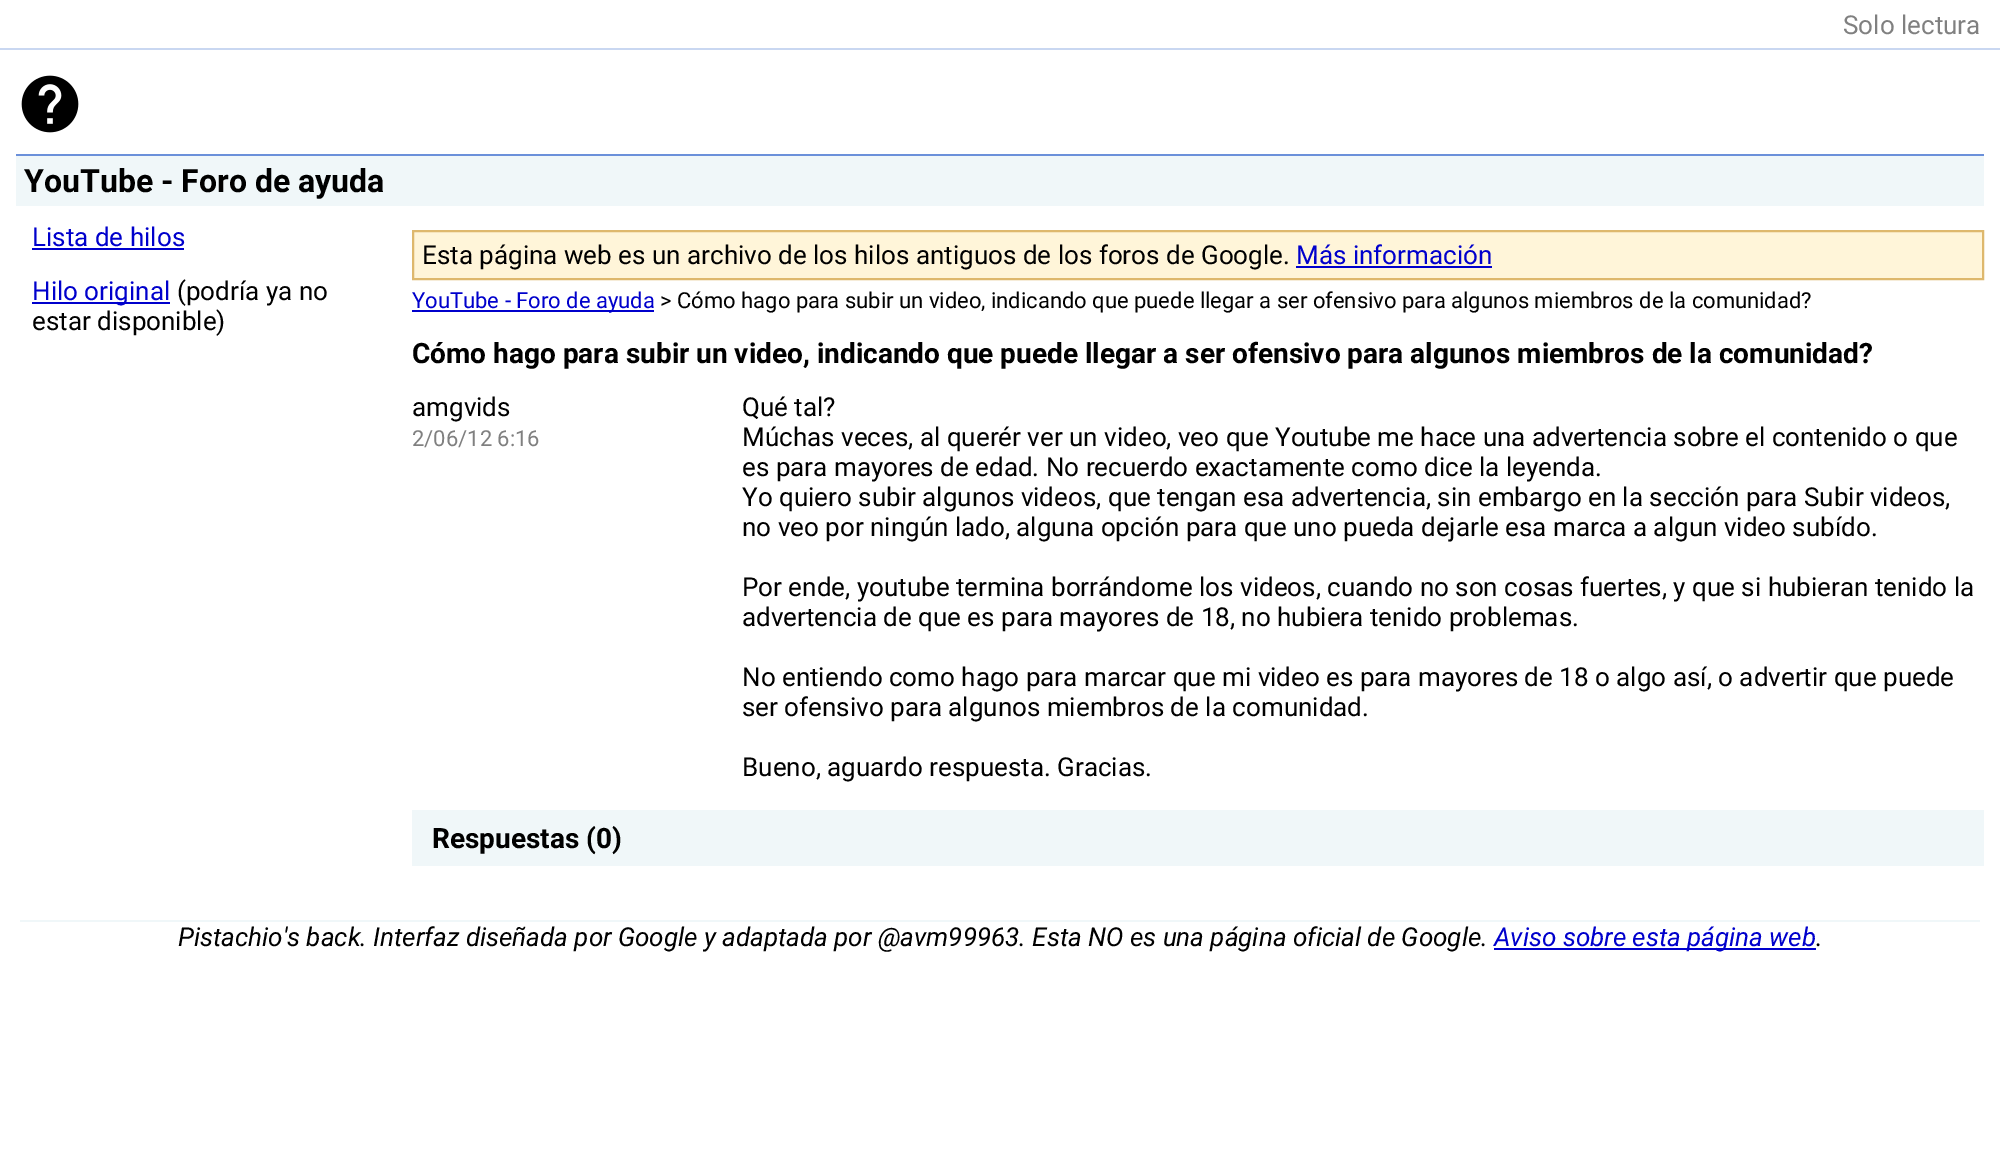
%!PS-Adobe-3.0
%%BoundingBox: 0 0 2000 1158
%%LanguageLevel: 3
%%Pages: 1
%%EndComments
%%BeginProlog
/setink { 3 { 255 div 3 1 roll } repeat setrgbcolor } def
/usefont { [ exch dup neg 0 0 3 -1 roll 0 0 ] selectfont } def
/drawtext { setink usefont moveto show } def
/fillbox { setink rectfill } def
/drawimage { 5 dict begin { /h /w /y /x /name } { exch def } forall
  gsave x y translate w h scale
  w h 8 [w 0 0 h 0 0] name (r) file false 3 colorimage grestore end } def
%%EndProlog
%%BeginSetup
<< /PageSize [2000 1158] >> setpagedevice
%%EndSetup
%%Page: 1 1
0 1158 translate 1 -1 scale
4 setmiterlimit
0 0 2000 1158 255 255 255 fillbox
0 48 2000 2 201 215 241 fillbox
(Solo lectura) 1843 34 /Roboto-Regular 26 128 128 128 drawtext
(assets/img1.rgb) 21 75 58 58 drawimage
16 156 1968 50 240 247 249 fillbox
16 154 1968 2 107 144 218 fillbox
(YouTube - Foro de ayuda) 24 192 /Roboto-Bold 32 0 0 0 drawtext
(Lista de hilos) 32 246 /Roboto-Regular 26 0 0 204 drawtext
32 248 152 2 0 0 204 fillbox
32 302 138 2 0 0 204 fillbox
(Hilo original) 32 300 /Roboto-Regular 26 0 0 204 drawtext
(\(podría ya no) 177 300 /Roboto-Regular 26 0 0 0 drawtext
(estar disponible\)) 32 330 /Roboto-Regular 26 0 0 0 drawtext
255 245 217 setink
413 231 moveto 1983 231 lineto 1983 279 lineto 413 279 lineto closepath gsave fill grestore
222 184 109 setink
2 setlinewidth
stroke
(Esta página web es un archivo de los hilos antiguos de los foros de Google.) 422 264 /Roboto-Regular 26 0 0 0 drawtext
(Más información) 1296 264 /Roboto-Regular 26 0 0 204 drawtext
1296 266 196 2 0 0 204 fillbox
412 310 242 2 0 0 204 fillbox
(YouTube - Foro de ayuda) 412 308 /Roboto-Regular 22 0 0 204 drawtext
(> Cómo hago para subir un video, indicando que puede llegar a ser ofensivo para algunos miembros de la comunidad?) 660 308 /Roboto-Regular 22 0 0 0 drawtext
(Cómo hago para subir un video, indicando que puede llegar a ser ofensivo para algunos miembros de la comunidad?) 412 363 /Roboto-Bold 28 0 0 0 drawtext
(amgvids) 412 416 /Roboto-Regular 26 0 0 0 drawtext
(2/06/12 6:16) 412 446 /Roboto-Regular 22 128 128 128 drawtext
(Qué tal?) 742 416 /Roboto-Regular 26 0 0 0 drawtext
(Múchas veces, al querér ver un video, veo que Youtube me hace una advertencia sobre el contenido o que) 742 446 /Roboto-Regular 26 0 0 0 drawtext
(es para mayores de edad. No recuerdo exactamente como dice la leyenda.) 742 476 /Roboto-Regular 26 0 0 0 drawtext
(Yo quiero subir algunos videos, que tengan esa advertencia, sin embargo en la sección para Subir videos,) 742 506 /Roboto-Regular 26 0 0 0 drawtext
(no veo por ningún lado, alguna opción para que uno pueda dejarle esa marca a algun video subído.) 742 536 /Roboto-Regular 26 0 0 0 drawtext
(Por ende, youtube termina borrándome los videos, cuando no son cosas fuertes, y que si hubieran tenido la) 742 596 /Roboto-Regular 26 0 0 0 drawtext
(advertencia de que es para mayores de 18, no hubiera tenido problemas.) 742 626 /Roboto-Regular 26 0 0 0 drawtext
(No entiendo como hago para marcar que mi video es para mayores de 18 o algo así, o advertir que puede) 742 686 /Roboto-Regular 26 0 0 0 drawtext
(ser ofensivo para algunos miembros de la comunidad.) 742 716 /Roboto-Regular 26 0 0 0 drawtext
(Bueno, aguardo respuesta. Gracias.) 742 776 /Roboto-Regular 26 0 0 0 drawtext
412 810 1572 56 240 247 249 fillbox
(Respuestas \(0\)) 432 848 /Roboto-Bold 28 0 0 0 drawtext
20 920 1960 2 240 247 249 fillbox
(Pistachio's back. Interfaz diseñada por Google y adaptada por @avm99963. Esta NO es una página oficial de Google.) 178 946 /Roboto-Italic 26 0 0 0 drawtext
1494 948 322 2 0 0 204 fillbox
(Aviso sobre esta página web) 1494 946 /Roboto-Italic 26 0 0 204 drawtext
(.) 1816 946 /Roboto-Italic 26 0 0 0 drawtext
showpage
%%EOF
